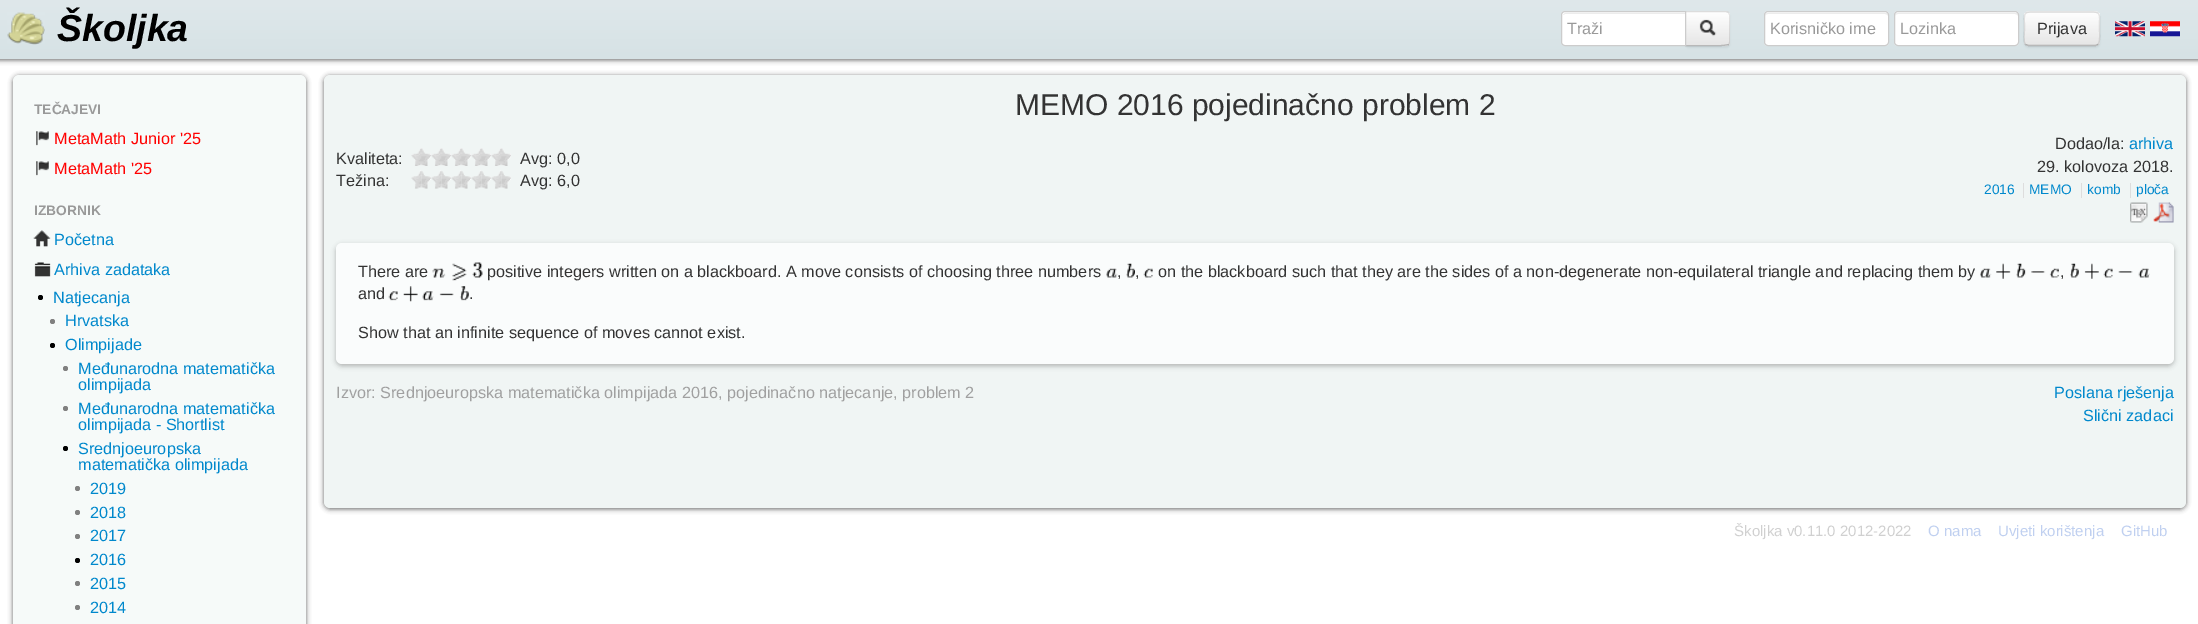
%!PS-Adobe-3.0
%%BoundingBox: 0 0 2198 624
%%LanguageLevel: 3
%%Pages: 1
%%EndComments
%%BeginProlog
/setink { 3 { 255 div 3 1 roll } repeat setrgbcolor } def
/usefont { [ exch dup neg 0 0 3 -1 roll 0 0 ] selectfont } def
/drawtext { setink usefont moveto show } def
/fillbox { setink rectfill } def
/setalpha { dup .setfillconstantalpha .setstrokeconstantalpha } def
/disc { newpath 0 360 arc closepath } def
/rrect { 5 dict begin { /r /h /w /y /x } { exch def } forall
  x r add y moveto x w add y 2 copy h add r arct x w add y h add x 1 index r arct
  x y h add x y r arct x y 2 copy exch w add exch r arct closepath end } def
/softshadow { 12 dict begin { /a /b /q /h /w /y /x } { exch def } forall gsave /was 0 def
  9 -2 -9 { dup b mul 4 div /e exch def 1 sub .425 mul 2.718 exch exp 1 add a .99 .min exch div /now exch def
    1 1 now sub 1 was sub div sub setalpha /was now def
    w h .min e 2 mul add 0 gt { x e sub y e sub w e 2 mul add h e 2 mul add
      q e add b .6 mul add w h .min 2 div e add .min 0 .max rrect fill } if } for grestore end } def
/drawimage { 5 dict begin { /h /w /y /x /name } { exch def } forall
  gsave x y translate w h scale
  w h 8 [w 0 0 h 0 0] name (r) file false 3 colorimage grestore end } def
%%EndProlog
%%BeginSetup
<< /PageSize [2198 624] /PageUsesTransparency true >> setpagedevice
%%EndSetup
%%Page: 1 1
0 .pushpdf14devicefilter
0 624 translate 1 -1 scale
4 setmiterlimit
0 0 2198 624 255 255 255 fillbox
102 102 102 setink
-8 1 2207 59 0 2.5 1 softshadow
gsave 0 0 moveto 2198 0 lineto 2198 59 lineto 0 59 lineto closepath clip newpath
<< /ShadingType 2 /ColorSpace /DeviceRGB /Coords [-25 0 -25 59] /Extend [true true] /Function << /FunctionType 2 /Domain [0 1] /C0 [0.875 0.91 0.922] /C1 [0.839 0.886 0.898] /N 1 >> >> shfill grestore
(assets/img1.rgb) 7 12 38 33 drawimage
(Školjka) 57 41 /LiberationSans-BoldItalic 37.5 0 0 0 drawtext
1685 13 45 35 4 1 0.05 softshadow
245 245 245 setink
1685 11 moveto 1726 11 lineto 1728 11 1730 13 1730 15 curveto 1730 42 lineto 1730 44 1728 46 1726 46 curveto 1685 46 lineto closepath fill
0.1 setalpha
0 0 0 setink
1686 12 moveto 1685 11 lineto 1727 11 lineto 1729 12 lineto 1728 13 lineto 1726 12 lineto closepath fill
gsave
1685 11 moveto 1726 11 lineto 1728 11 1730 13 1730 15 curveto 1730 42 lineto 1730 44 1728 46 1726 46 curveto 1685 46 lineto closepath clip newpath
1 setalpha
gsave 1686 13 moveto 1730 13 lineto 1730 45 lineto 1686 45 lineto closepath clip newpath
<< /ShadingType 2 /ColorSpace /DeviceRGB /Coords [1708 12 1708 45] /Extend [true true] /Function << /FunctionType 2 /Domain [0 1] /C0 [1 1 1] /C1 [0.902 0.902 0.902] /N 1 >> >> shfill grestore
grestore
1730 42 moveto 1730 15 lineto 1730 14 1729.5 13 1729 12.5 curveto 1728 13 lineto 1728.5 13.5 1729 14.5 1729 15 curveto 1729 42 lineto 1729 43 1728.5 44 1728 44.5 curveto 1729 45 lineto 1729.5 44.5 1730 43.5 1730 42 curveto closepath fill
0.25 setalpha
1729 45 moveto 1726 47 1691 46 1685 46 curveto 1686 45 lineto 1691 45 1726 46 1728 44 curveto closepath fill
1 setalpha
255 255 255 setink
1565 11 moveto 1686 11 lineto 1686 46 lineto 1565 46 lineto 1563 46 1561 44 1561 42 curveto 1561 15 lineto 1561 13 1563 11 1565 11 curveto closepath fill
236 236 236 setink
1565 14 moveto 1685 14 lineto 1685 13 lineto 1566 13 lineto 1564 13 1564 14 1563 15 curveto closepath fill
204 204 204 setink
1565 11.5 moveto 1685.5 11.5 lineto 1685.5 45.5 lineto 1565 45.5 lineto 1563 45.5 1561.5 44 1561.5 42 curveto 1561.5 15 lineto 1561.5 13 1563 11.5 1565 11.5 curveto closepath stroke
(Traži) 1567 34 /LiberationSans-Regular 16.25 153 153 153 drawtext
(assets/img2.rgb) 1699 19 18 18 drawimage
255 255 255 setink
1764 11 125 35 4 rrect fill
236 236 236 setink
1768 14 moveto 1885 14 lineto 1886 14 1888 15 1888 16 curveto 1888 14 1887 13 1886 13 curveto 1767 13 lineto 1765 14 1765 15 1765 16 curveto 1765 15 1766 14 1768 14 curveto closepath fill
204 204 204 setink
1764.5 11.5 124 34 3.5 rrect stroke
(Korisničko ime) 1770 34 /LiberationSans-Regular 16.25 153 153 153 drawtext
255 255 255 setink
1894 11 125 35 4 rrect fill
236 236 236 setink
1898 14 moveto 2015 14 lineto 2016 14 2018 15 2018 16 curveto 2018 14 2017 13 2016 13 curveto 1897 13 lineto 1895 14 1895 15 1895 16 curveto 1895 15 1896 14 1898 14 curveto closepath fill
204 204 204 setink
1894.5 11.5 124 34 3.5 rrect stroke
(Lozinka) 1900 34 /LiberationSans-Regular 16.25 153 153 153 drawtext
0 0 0 setink
2024 13 76 35 5 1 0.05 softshadow
245 245 245 setink
2024 11 76 35 5 rrect fill
gsave
2024 11 76 35 5 rrect clip newpath
gsave 2024 13 moveto 2100 13 lineto 2100 45 lineto 2024 45 lineto closepath clip newpath
<< /ShadingType 2 /ColorSpace /DeviceRGB /Coords [2062 12 2062 45] /Extend [true true] /Function << /FunctionType 2 /Domain [0 1] /C0 [1 1 1] /C1 [0.902 0.902 0.902] /N 1 >> >> shfill grestore
grestore
0.25 setalpha
0 0 0 setink
1.2 setlinewidth
2098 44.5 moveto 2095.5 45.5 lineto 2028.5 45.5 lineto 2025.5 44.5 lineto stroke
0.1 setalpha
2025.5 44.5 moveto 2023 42 2024.5 32 2024.5 29 curveto 2024.5 10.5 2021.5 12 2040 12 curveto 2084 12 lineto 2102 12 2099.5 10.5 2099.5 29 curveto 2099.5 32 2100.5 42 2098 44.5 curveto stroke
1 setalpha
(Prijava) 2037 34 /LiberationSans-Regular 16.25 51 51 51 drawtext
(assets/img3.rgb) 2115 21 30 16 drawimage
(assets/img4.rgb) 2150 21 30 16 drawimage
102 102 102 setink
13 76 293 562 6 2.5 1 softshadow
246 250 249 setink
13 75 293 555 6 rrect fill
(TEČAJEVI) 34 114 /LiberationSans-Bold 13.75 153 153 153 drawtext
(assets/img5.rgb) 36 131 13 15 drawimage
(MetaMath Junior '25) 54 144 /LiberationSans-Regular 16.25 255 0 0 drawtext
(assets/img5.rgb) 36 161 13 15 drawimage
(MetaMath '25) 54 174 /LiberationSans-Regular 16.25 255 0 0 drawtext
(IZBORNIK) 34 215 /LiberationSans-Bold 13.75 153 153 153 drawtext
(assets/img6.rgb) 33 230 18 17 drawimage
(Početna) 54 245 /LiberationSans-Regular 16.25 0 136 204 drawtext
(assets/img7.rgb) 34 262 17 15 drawimage
(Arhiva zadataka) 54 275 /LiberationSans-Regular 16.25 0 136 204 drawtext
0 0 0 setink
40.5 297.5 2.5 disc fill
(Natjecanja) 53 303 /LiberationSans-Regular 16.25 0 136 204 drawtext
128 128 128 setink
52.5 321.5 2.5 disc fill
(Hrvatska) 65 326 /LiberationSans-Regular 16.25 0 136 204 drawtext
0 0 0 setink
52.5 345.5 2.5 disc fill
(Olimpijade) 65 350 /LiberationSans-Regular 16.25 0 136 204 drawtext
128 128 128 setink
65.5 368.5 2.5 disc fill
(Međunarodna matematička) 78 374 /LiberationSans-Regular 16.25 0 136 204 drawtext
(olimpijada) 78 390 /LiberationSans-Regular 16.25 0 136 204 drawtext
128 128 128 setink
65.5 408.5 2.5 disc fill
(Međunarodna matematička) 78 414 /LiberationSans-Regular 16.25 0 136 204 drawtext
(olimpijada - Shortlist) 78 430 /LiberationSans-Regular 16.25 0 136 204 drawtext
0 0 0 setink
65.5 448.5 2.5 disc fill
(Srednjoeuropska) 78 454 /LiberationSans-Regular 16.25 0 136 204 drawtext
(matematička olimpijada) 78 470 /LiberationSans-Regular 16.25 0 136 204 drawtext
128 128 128 setink
77.5 488.5 2.5 disc fill
(2019) 90 494 /LiberationSans-Regular 16.25 0 136 204 drawtext
128 128 128 setink
77.5 512.5 2.5 disc fill
(2018) 90 518 /LiberationSans-Regular 16.25 0 136 204 drawtext
128 128 128 setink
77.5 536.5 2.5 disc fill
(2017) 90 541 /LiberationSans-Regular 16.25 0 136 204 drawtext
0 0 0 setink
77.5 560.5 2.5 disc fill
(2016) 90 565 /LiberationSans-Regular 16.25 0 136 204 drawtext
128 128 128 setink
77.5 583.5 2.5 disc fill
(2015) 90 589 /LiberationSans-Regular 16.25 0 136 204 drawtext
128 128 128 setink
77.5 607.5 2.5 disc fill
(2014) 90 613 /LiberationSans-Regular 16.25 0 136 204 drawtext
102 102 102 setink
324 76 1862 433 6 2.5 1 softshadow
240 245 244 setink
324 75 1862 433 6 rrect fill
(MEMO 2016 pojedinačno problem 2) 1015 115 /LiberationSans-Regular 30 51 51 51 drawtext
(Kvaliteta:) 336 164 /LiberationSans-Regular 16.25 51 51 51 drawtext
(assets/img8.rgb) 411 148 20 18 drawimage
(assets/img8.rgb) 431 148 20 18 drawimage
(assets/img8.rgb) 451 148 20 18 drawimage
(assets/img8.rgb) 471 148 20 18 drawimage
(assets/img8.rgb) 491 148 20 18 drawimage
(Avg: 0,0) 520 164 /LiberationSans-Regular 16.25 51 51 51 drawtext
(Težina:) 336 186 /LiberationSans-Regular 16.25 51 51 51 drawtext
(assets/img9.rgb) 411 170 11 19 drawimage
(assets/img10.rgb) 421 171 10 18 drawimage
(assets/img9.rgb) 431 170 11 19 drawimage
(assets/img10.rgb) 441 171 10 18 drawimage
(assets/img9.rgb) 451 170 11 19 drawimage
(assets/img10.rgb) 461 171 10 18 drawimage
(assets/img9.rgb) 471 170 11 19 drawimage
(assets/img10.rgb) 481 171 10 18 drawimage
(assets/img9.rgb) 491 170 11 19 drawimage
(assets/img10.rgb) 501 171 10 18 drawimage
(Avg: 6,0) 520 186 /LiberationSans-Regular 16.25 51 51 51 drawtext
(Dodao/la:) 2055 149 /LiberationSans-Regular 16.25 51 51 51 drawtext
(arhiva) 2129 149 /LiberationSans-Regular 16.25 0 136 204 drawtext
(29. kolovoza 2018.) 2037 172 /LiberationSans-Regular 16.25 51 51 51 drawtext
(2016) 1984 194 /LiberationSans-Regular 13.75 0 136 204 drawtext
(MEMO) 2029 194 /LiberationSans-Regular 13.75 0 136 204 drawtext
2023 183 1 15 221 221 221 fillbox
(komb) 2087 194 /LiberationSans-Regular 13.75 0 136 204 drawtext
2081 183 1 15 221 221 221 fillbox
(ploča) 2136 194 /LiberationSans-Regular 13.75 0 136 204 drawtext
2130 183 1 15 221 221 221 fillbox
(assets/img11.rgb) 2130 202 18 21 drawimage
(assets/img12.rgb) 2153 202 21 21 drawimage
128 128 128 setink
336 245 1838 121 6 2.5 0.55 softshadow
250 252 252 setink
336 243 1838 121 6 rrect fill
(There are) 358 277 /LiberationSans-Regular 16.25 51 51 51 drawtext
(assets/img13.rgb) 432 262 51 19 drawimage
(positive integers written on a blackboard. A move consists of choosing three numbers) 487 277 /LiberationSans-Regular 16.25 51 51 51 drawtext
(assets/img14.rgb) 1106 268 12 10 drawimage
(,) 1117 277 /LiberationSans-Regular 16.25 51 51 51 drawtext
(assets/img15.rgb) 1126 263 9 15 drawimage
(,) 1135 277 /LiberationSans-Regular 16.25 51 51 51 drawtext
(assets/img16.rgb) 1143 268 10 10 drawimage
(on the blackboard such that they are the sides of a non-degenerate non-equilateral triangle and replacing them by) 1158 277 /LiberationSans-Regular 16.25 51 51 51 drawtext
(assets/img17.rgb) 1980 263 79 16 drawimage
(,) 2060 277 /LiberationSans-Regular 16.25 51 51 51 drawtext
(assets/img18.rgb) 2070 263 80 16 drawimage
(and) 358 299 /LiberationSans-Regular 16.25 51 51 51 drawtext
(assets/img19.rgb) 388 286 81 16 drawimage
(.) 469 299 /LiberationSans-Regular 16.25 51 51 51 drawtext
(Show that an infinite sequence of moves cannot exist.) 358 338 /LiberationSans-Regular 16.25 51 51 51 drawtext
(Izvor: Srednjoeuropska matematička olimpijada 2016, pojedinačno natjecanje, problem 2) 336 398 /LiberationSans-Regular 16.25 160 160 160 drawtext
(Poslana rješenja) 2054 398 /LiberationSans-Regular 16.25 0 136 204 drawtext
(Slični zadaci) 2083 421 /LiberationSans-Regular 16.25 0 136 204 drawtext
(Školjka v0.11.0 2012-2022) 1734 536 /LiberationSans-Regular 15 208 208 208 drawtext
(O nama) 1928 536 /LiberationSans-Regular 15 192 208 240 drawtext
(Uvjeti korištenja) 1998 536 /LiberationSans-Regular 15 192 208 240 drawtext
(GitHub) 2121 536 /LiberationSans-Regular 15 192 208 240 drawtext
.poppdf14devicefilter showpage
%%EOF
